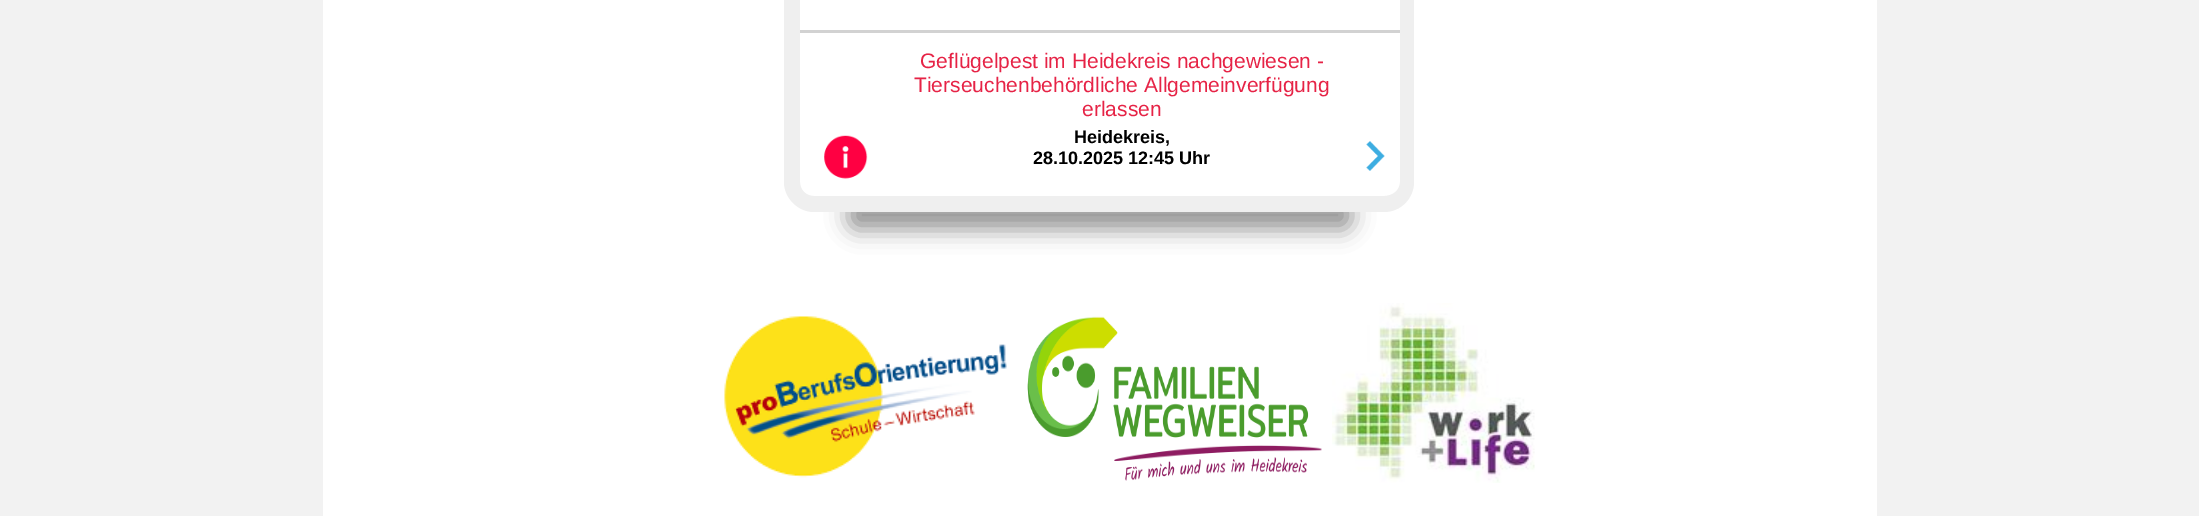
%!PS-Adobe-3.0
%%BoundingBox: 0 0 2199 516
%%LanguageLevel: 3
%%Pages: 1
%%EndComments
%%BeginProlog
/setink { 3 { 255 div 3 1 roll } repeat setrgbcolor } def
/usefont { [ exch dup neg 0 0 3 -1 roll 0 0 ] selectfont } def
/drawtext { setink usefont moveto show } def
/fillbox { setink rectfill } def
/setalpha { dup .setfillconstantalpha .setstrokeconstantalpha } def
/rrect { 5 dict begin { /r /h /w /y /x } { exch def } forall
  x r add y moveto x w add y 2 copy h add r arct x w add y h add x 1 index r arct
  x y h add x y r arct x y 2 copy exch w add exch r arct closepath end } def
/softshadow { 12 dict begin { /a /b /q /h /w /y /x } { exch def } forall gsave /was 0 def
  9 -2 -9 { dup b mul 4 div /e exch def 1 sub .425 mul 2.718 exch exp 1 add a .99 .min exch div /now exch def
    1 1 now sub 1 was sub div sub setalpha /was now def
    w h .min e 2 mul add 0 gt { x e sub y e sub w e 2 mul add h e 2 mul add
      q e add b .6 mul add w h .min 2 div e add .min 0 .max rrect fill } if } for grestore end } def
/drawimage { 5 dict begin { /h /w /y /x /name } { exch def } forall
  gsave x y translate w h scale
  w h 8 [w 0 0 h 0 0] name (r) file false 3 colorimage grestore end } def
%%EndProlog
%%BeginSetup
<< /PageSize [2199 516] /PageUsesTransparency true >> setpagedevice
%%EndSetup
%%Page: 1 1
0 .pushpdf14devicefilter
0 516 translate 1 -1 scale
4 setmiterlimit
0 0 2199 516 242 242 242 fillbox
323 0 1554 516 255 255 255 fillbox
0 0 0 setink
848 200 504 30 15 11 0.4 softshadow
255 255 255 setink
785 -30 moveto 1415 -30 lineto 1415 182 lineto 1415 198.5 1401.5 212 1385 212 curveto 815 212 lineto 798.5 212 785 198.5 785 182 curveto closepath fill
239 239 239 setink
784 -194 moveto 1414 -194 lineto 1414 182 lineto 1414 198 1401 212 1384 212 curveto 814 212 lineto 798 212 784 198 784 182 curveto closepath 800 -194 moveto 1400 -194 lineto 1400 182 lineto 1400 190 1393 196 1384 196 curveto 814 196 lineto 806 196 800 190 800 182 curveto closepath eofill
800 30 600 3 210 210 210 fillbox
(Geflügelpest im Heidekreis nachgewiesen -) 920 68 /LiberationSans-Regular 21 230 35 70 drawtext
(Tierseuchenbehördliche Allgemeinverfügung) 914 92 /LiberationSans-Regular 21 230 35 70 drawtext
(erlassen) 1082 116 /LiberationSans-Regular 21 230 35 70 drawtext
(assets/img1.rgb) 824 135 44 44 drawimage
(Heidekreis,) 1074 143 /LiberationSans-Bold 18 0 0 0 drawtext
(28.10.2025 12:45 Uhr) 1033 164 /LiberationSans-Bold 18 0 0 0 drawtext
(assets/img2.rgb) 1366 141 19 30 drawimage
(assets/img3.rgb) 724 316 283 162 drawimage
(assets/img4.rgb) 1027 316 295 165 drawimage
(assets/img5.rgb) 1332 303 203 180 drawimage
.poppdf14devicefilter showpage
%%EOF
